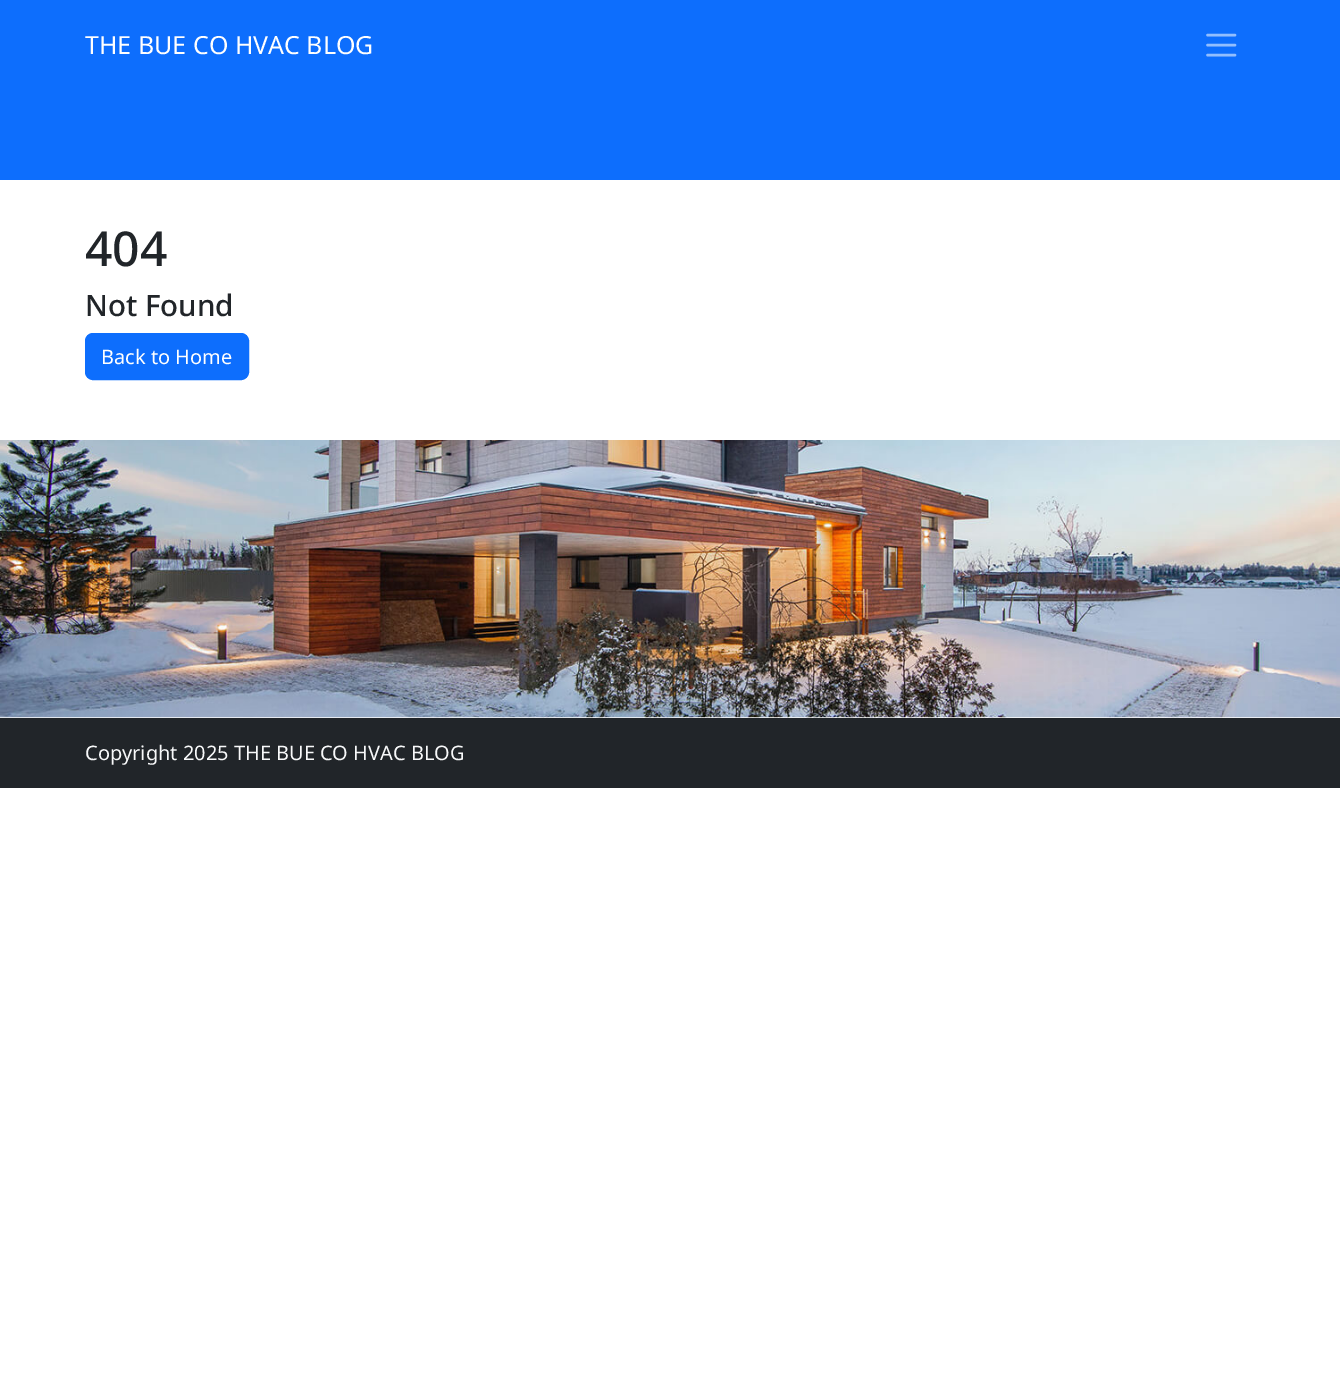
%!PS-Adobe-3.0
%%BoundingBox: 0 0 1340 1383
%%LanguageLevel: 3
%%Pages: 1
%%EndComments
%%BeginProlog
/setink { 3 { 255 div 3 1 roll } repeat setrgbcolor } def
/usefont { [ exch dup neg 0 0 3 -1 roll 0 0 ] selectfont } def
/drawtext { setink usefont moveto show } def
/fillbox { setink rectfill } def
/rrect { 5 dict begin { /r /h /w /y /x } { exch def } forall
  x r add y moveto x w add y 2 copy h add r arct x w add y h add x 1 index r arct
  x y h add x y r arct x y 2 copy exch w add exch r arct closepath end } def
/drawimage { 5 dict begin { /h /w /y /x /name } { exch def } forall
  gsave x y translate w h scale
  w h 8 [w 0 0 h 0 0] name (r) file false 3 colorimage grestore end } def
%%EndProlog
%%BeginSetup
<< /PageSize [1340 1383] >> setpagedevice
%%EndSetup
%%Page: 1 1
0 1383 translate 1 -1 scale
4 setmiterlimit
0 0 1340 1383 255 255 255 fillbox
0 0 1340 180 13 110 253 fillbox
(THE BUE CO HVAC BLOG) 85 54 /NotoSans-Regular 25 255 255 255 drawtext
146 190 254 setink
2.5 setlinewidth
1 setlinecap
1207.5 35 moveto 1235 35 lineto 1207.5 45 moveto 1235 45 lineto 1207.5 55 moveto 1235 55 lineto stroke
(404) 85 266 /NotoSans-Medium 48 33 37 41 drawtext
(Not Found) 85 316 /NotoSans-Medium 29.5 33 37 41 drawtext
13 110 253 setink
85.5 333.5 163 46 7.5 rrect gsave fill grestore
1 setlinewidth
0 setlinecap
stroke
(Back to Home) 101 364 /NotoSans-Regular 20 255 255 255 drawtext
(assets/img1.rgb) 0 440 1340 278 drawimage
0 718 1340 70 33 37 41 fillbox
(Copyright 2025 THE BUE CO HVAC BLOG) 85 760 /NotoSans-Regular 20 248 249 250 drawtext
showpage
%%EOF
